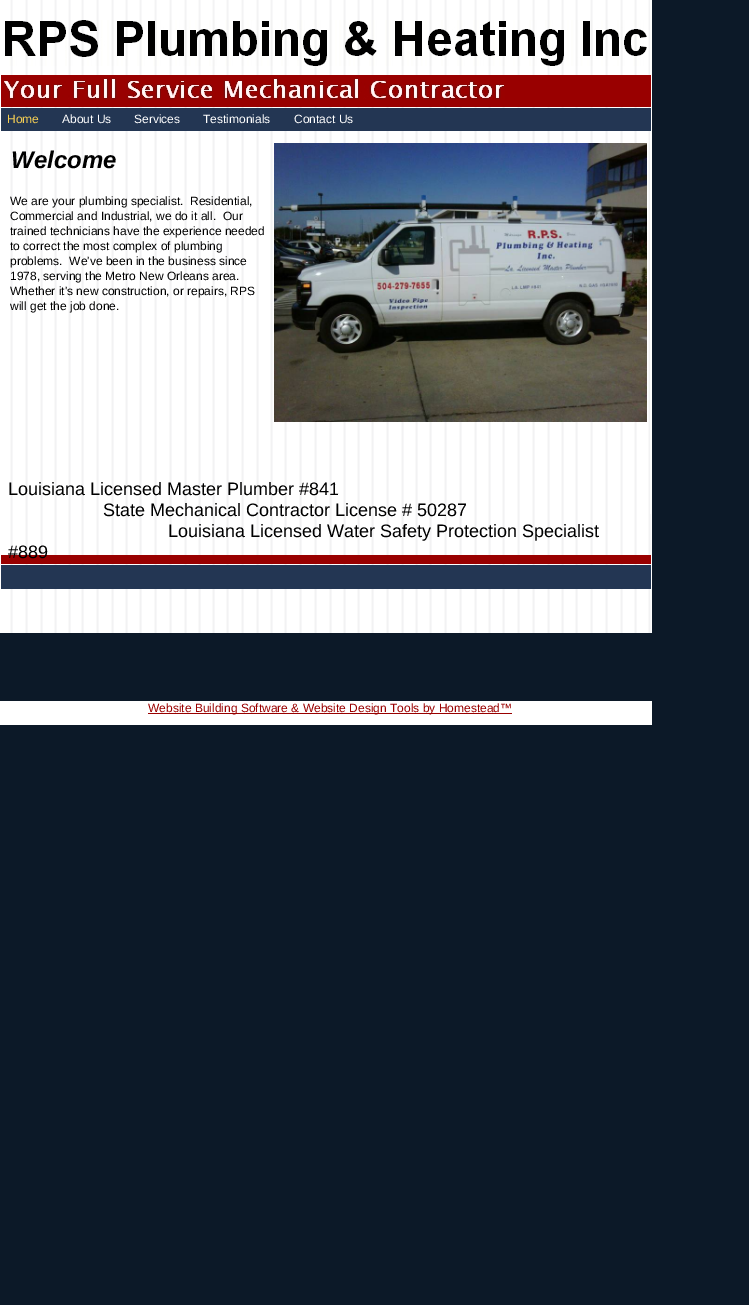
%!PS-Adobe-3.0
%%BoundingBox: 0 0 749 1305
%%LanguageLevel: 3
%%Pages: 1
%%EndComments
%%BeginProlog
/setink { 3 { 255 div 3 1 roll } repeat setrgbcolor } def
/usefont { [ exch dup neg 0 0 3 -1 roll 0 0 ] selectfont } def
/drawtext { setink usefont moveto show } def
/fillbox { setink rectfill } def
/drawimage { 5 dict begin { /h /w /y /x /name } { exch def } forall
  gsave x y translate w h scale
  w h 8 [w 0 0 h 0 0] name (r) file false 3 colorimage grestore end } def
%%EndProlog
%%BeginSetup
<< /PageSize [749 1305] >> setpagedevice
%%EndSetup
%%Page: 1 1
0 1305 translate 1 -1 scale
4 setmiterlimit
0 0 749 1305 12 25 40 fillbox
(assets/img1.rgb) 0 0 652 600 drawimage
(assets/img2.rgb) 5 20 642 46 drawimage
(assets/img3.rgb) 4 78 501 22 drawimage
(Home) 7 123 /LiberationSans-Regular 12 244 206 83 drawtext
(About Us) 62 123 /LiberationSans-Regular 12 255 255 255 drawtext
(Services) 134 123 /LiberationSans-Regular 12 255 255 255 drawtext
(Testimonials) 203 123 /LiberationSans-Regular 12 255 255 255 drawtext
(Contact Us) 294 123 /LiberationSans-Regular 12 255 255 255 drawtext
(Welcome) 11 168 /LiberationSans-BoldItalic 24 0 0 0 drawtext
(assets/img4.rgb) 274 143 373 279 drawimage
(We are your plumbing specialist.  Residential,) 10 205 /LiberationSans-Regular 12 0 0 0 drawtext
(Commercial and Industrial, we do it all.  Our) 10 220 /LiberationSans-Regular 12 0 0 0 drawtext
(trained technicians have the experience needed) 10 235 /LiberationSans-Regular 12 0 0 0 drawtext
(to correct the most complex of plumbing) 10 250 /LiberationSans-Regular 12 0 0 0 drawtext
(problems.  We've been in the business since) 10 265 /LiberationSans-Regular 12 0 0 0 drawtext
(1978, serving the Metro New Orleans area.) 10 280 /LiberationSans-Regular 12 0 0 0 drawtext
(Whether it's new construction, or repairs, RPS) 10 295 /LiberationSans-Regular 12 0 0 0 drawtext
(will get the job done.) 10 310 /LiberationSans-Regular 12 0 0 0 drawtext
(Louisiana Licensed Master Plumber #841) 8 495 /LiberationSans-Regular 18 0 0 0 drawtext
(State Mechanical Contractor License # 50287) 103 516 /LiberationSans-Regular 18 0 0 0 drawtext
(Louisiana Licensed Water Safety Protection Specialist) 168 537 /LiberationSans-Regular 18 0 0 0 drawtext
(#889) 8 558 /LiberationSans-Regular 18 0 0 0 drawtext
(assets/img5.rgb) 0 600 652 33 drawimage
0 701 652 24 255 255 255 fillbox
148 713 364 1 153 0 0 fillbox
(Website Building Software & Website Design Tools by Homestead™) 148 712 /LiberationSans-Regular 12 153 0 0 drawtext
showpage
%%EOF
